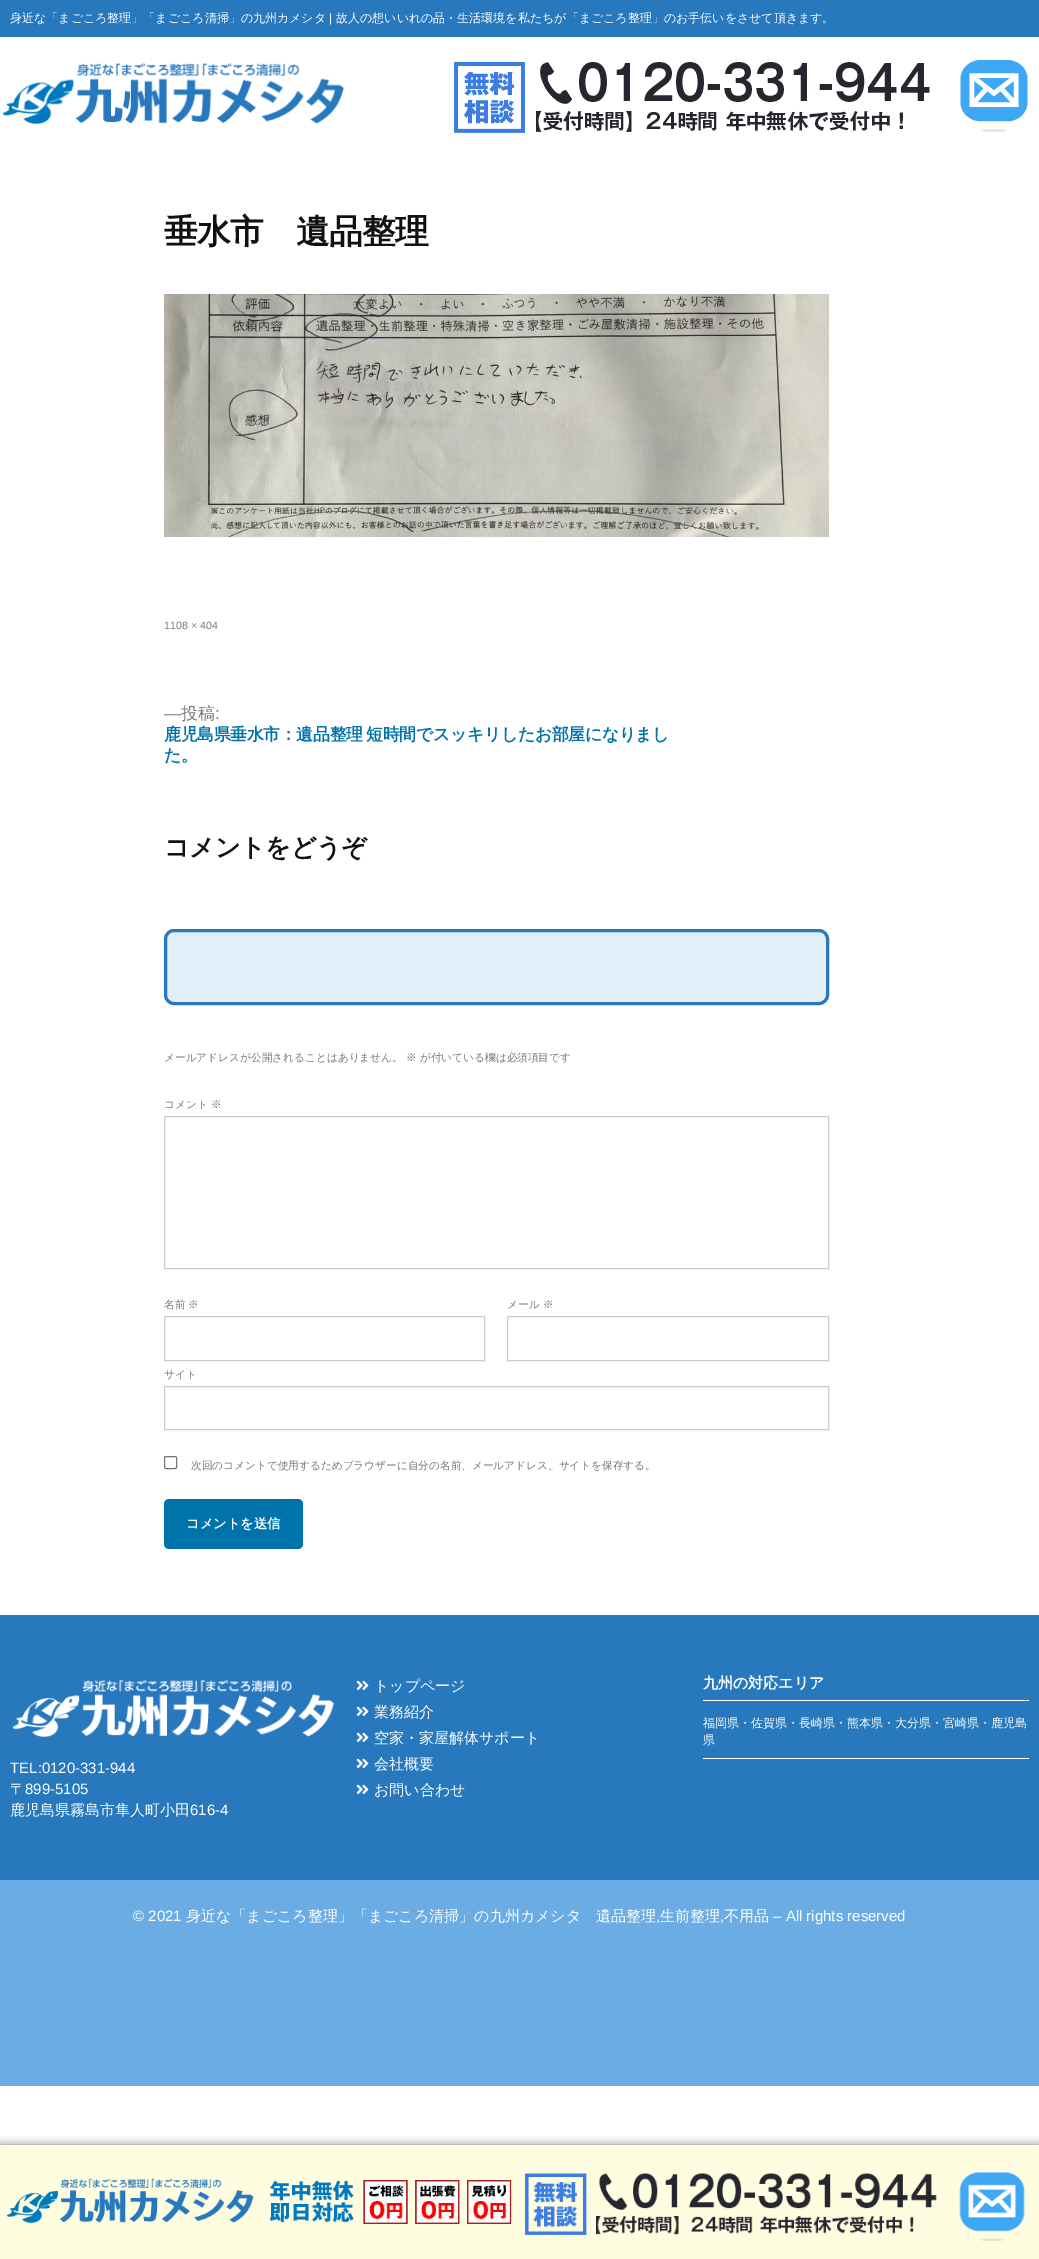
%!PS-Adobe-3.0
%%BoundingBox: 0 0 1039 2259
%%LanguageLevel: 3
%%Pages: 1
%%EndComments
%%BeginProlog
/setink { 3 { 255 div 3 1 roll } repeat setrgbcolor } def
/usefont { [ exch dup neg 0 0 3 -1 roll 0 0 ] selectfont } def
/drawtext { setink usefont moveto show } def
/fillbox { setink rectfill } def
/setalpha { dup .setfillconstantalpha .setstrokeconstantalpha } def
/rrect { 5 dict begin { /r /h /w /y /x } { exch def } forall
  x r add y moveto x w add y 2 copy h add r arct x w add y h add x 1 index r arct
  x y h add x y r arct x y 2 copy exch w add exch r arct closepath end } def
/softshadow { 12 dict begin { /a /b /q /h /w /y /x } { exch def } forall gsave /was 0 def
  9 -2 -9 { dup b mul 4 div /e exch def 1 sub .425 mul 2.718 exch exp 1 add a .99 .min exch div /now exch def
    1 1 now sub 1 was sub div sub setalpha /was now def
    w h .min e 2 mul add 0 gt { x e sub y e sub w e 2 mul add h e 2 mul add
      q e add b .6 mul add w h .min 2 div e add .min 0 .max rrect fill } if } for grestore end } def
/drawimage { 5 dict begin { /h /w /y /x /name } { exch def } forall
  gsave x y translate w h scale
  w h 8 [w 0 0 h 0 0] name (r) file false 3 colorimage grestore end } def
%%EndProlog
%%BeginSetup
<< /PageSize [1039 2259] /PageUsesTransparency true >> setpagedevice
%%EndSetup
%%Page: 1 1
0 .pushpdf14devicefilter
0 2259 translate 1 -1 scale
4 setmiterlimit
0 0 1039 2259 255 255 255 fillbox
0 2145 1039 114 255 253 224 fillbox
0 0 1039 37 39 120 189 fillbox
(身近な「まごころ整理」「まごころ清掃」の九州カメシタ) 10 22 /WenQuanYiZenHei-Medium 12 255 255 255 drawtext
(|) 329 22 /LiberationSans-Regular 12 255 255 255 drawtext
(故人の想いいれの品・生活環境を私たちが「まごころ整理」のお手伝いをさせて頂きます。) 336 22 /WenQuanYiZenHei-Medium 12 255 255 255 drawtext
(assets/img1.rgb) 3 62 342 62 drawimage
(assets/img2.rgb) 454 62 476 71 drawimage
(assets/img3.rgb) 960 60 68 72 drawimage
/WenQuanYiZenHei-Bold 33.75 usefont
17 17 17 setink
164 243 moveto -0.75 0 (垂水市　遺品整理) ashow
(assets/img4.rgb) 164 294 665 243 drawimage
(1108 × 404) 164 629 /LiberationSans-Regular 10.65 118 118 118 drawtext
(—) 164 719 /LiberationSans-Regular 16.9 118 118 118 drawtext
(投稿) 181 719 /WenQuanYiZenHei-Medium 16.9 118 118 118 drawtext
(:) 215 719 /LiberationSans-Regular 16.9 118 118 118 drawtext
/WenQuanYiZenHei-Bold 16.9 usefont
0 115 170 setink
164 740 moveto -1 0 32 -0.35 0 (鹿児島県垂水市：遺品整理 短時間でスッキリしたお部屋になりまし) awidthshow
164 761 moveto -0.35 0 (た。) ashow
/WenQuanYiZenHei-Bold 25.25 usefont
17 17 17 setink
164 856 moveto -0.5 0 (コメントをどうぞ) ashow
225 239 250 setink
165.5 930.5 662 73 8.5 rrect gsave fill grestore
39 120 189 setink
3 setlinewidth
stroke
(メールアドレスが公開されることはありません。) 164 1061 /WenQuanYiZenHei-Medium 10.65 118 118 118 drawtext
(※ が付いている欄は必須項目です) 406 1061 /WenQuanYiZenHei-Medium 10.65 118 118 118 drawtext
(コメント ※) 164 1108 /WenQuanYiZenHei-Medium 10.65 118 118 118 drawtext
204 204 204 setink
1 setlinewidth
164.5 1116.5 664 152 rectstroke
(名前 ※) 164 1308 /WenQuanYiZenHei-Medium 10.65 118 118 118 drawtext
204 204 204 setink
164.5 1316.5 320 44 rectstroke
(メール ※) 507 1308 /WenQuanYiZenHei-Medium 10.65 118 118 118 drawtext
204 204 204 setink
507.5 1316.5 321 44 rectstroke
(サイト) 164 1378 /WenQuanYiZenHei-Medium 10.65 118 118 118 drawtext
204 204 204 setink
164.5 1386.5 664 43 rectstroke
118 118 118 setink
164.5 1456.5 12 12 1.5 rrect stroke
(次回のコメントで使用するためブラウザーに自分の名前、メールアドレス、サイトを保存する。) 191 1469 /WenQuanYiZenHei-Medium 10.65 118 118 118 drawtext
0 115 170 setink
164 1499 139 50 5 rrect fill
(コメントを送信) 186 1528 /WenQuanYiZenHei-Bold 13.25 255 255 255 drawtext
0 1615 1039 265 39 120 189 fillbox
(assets/img5.rgb) 12 1679 323 58 drawimage
(TEL:0120-331-944) 10 1773 /LiberationSans-Regular 15 255 255 255 drawtext
(〒) 10 1794 /WenQuanYiZenHei-Medium 15 255 255 255 drawtext
(899-5105) 25 1794 /LiberationSans-Regular 15 255 255 255 drawtext
(鹿児島県霧島市隼人町小田) 10 1815 /WenQuanYiZenHei-Medium 15 255 255 255 drawtext
(616-4) 190 1815 /LiberationSans-Regular 15 255 255 255 drawtext
(assets/img6.rgb) 356 1680 13 10 drawimage
(トップページ) 374 1691 /WenQuanYiZenHei-Medium 15 255 255 255 drawtext
(assets/img6.rgb) 356 1706 13 10 drawimage
(業務紹介) 374 1717 /WenQuanYiZenHei-Medium 15 255 255 255 drawtext
(assets/img6.rgb) 356 1732 13 10 drawimage
(空家・家屋解体サポート) 374 1743 /WenQuanYiZenHei-Medium 15 255 255 255 drawtext
(assets/img6.rgb) 356 1758 13 10 drawimage
(会社概要) 374 1769 /WenQuanYiZenHei-Medium 15 255 255 255 drawtext
(assets/img6.rgb) 356 1784 13 10 drawimage
(お問い合わせ) 374 1795 /WenQuanYiZenHei-Medium 15 255 255 255 drawtext
(九州の対応エリア) 703 1688 /WenQuanYiZenHei-Bold 15 255 255 255 drawtext
703 1700 326 1 255 255 255 fillbox
(福岡県・佐賀県・長崎県・熊本県・大分県・宮崎県・鹿児島) 703 1727 /WenQuanYiZenHei-Medium 12 255 255 255 drawtext
(県) 703 1744 /WenQuanYiZenHei-Medium 12 255 255 255 drawtext
703 1758 326 1 255 255 255 fillbox
0 1880 1039 206 107 172 228 fillbox
(© 2021) 133 1921 /LiberationSans-Regular 15 255 255 255 drawtext
(身近な「まごころ整理」「まごころ清掃」の九州カメシタ　遺品整理) 186 1921 /WenQuanYiZenHei-Medium 15 255 255 255 drawtext
(,) 656 1921 /LiberationSans-Regular 15 255 255 255 drawtext
(生前整理) 660 1921 /WenQuanYiZenHei-Medium 15 255 255 255 drawtext
(,) 720 1921 /LiberationSans-Regular 15 255 255 255 drawtext
(不用品) 724 1921 /WenQuanYiZenHei-Medium 15 255 255 255 drawtext
(– All rights reserved) 773 1921 /LiberationSans-Regular 15 255 255 255 drawtext
gsave
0 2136 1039 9 rectclip
0 0 0 setink
0 2145 1039 114 0 5 0.5 softshadow
grestore
(assets/img7.rgb) 7 2178 247 45 drawimage
(assets/img8.rgb) 269 2180 243 44 drawimage
(assets/img9.rgb) 525 2173 412 62 drawimage
(assets/img10.rgb) 959 2172 66 69 drawimage
.poppdf14devicefilter showpage
%%EOF
